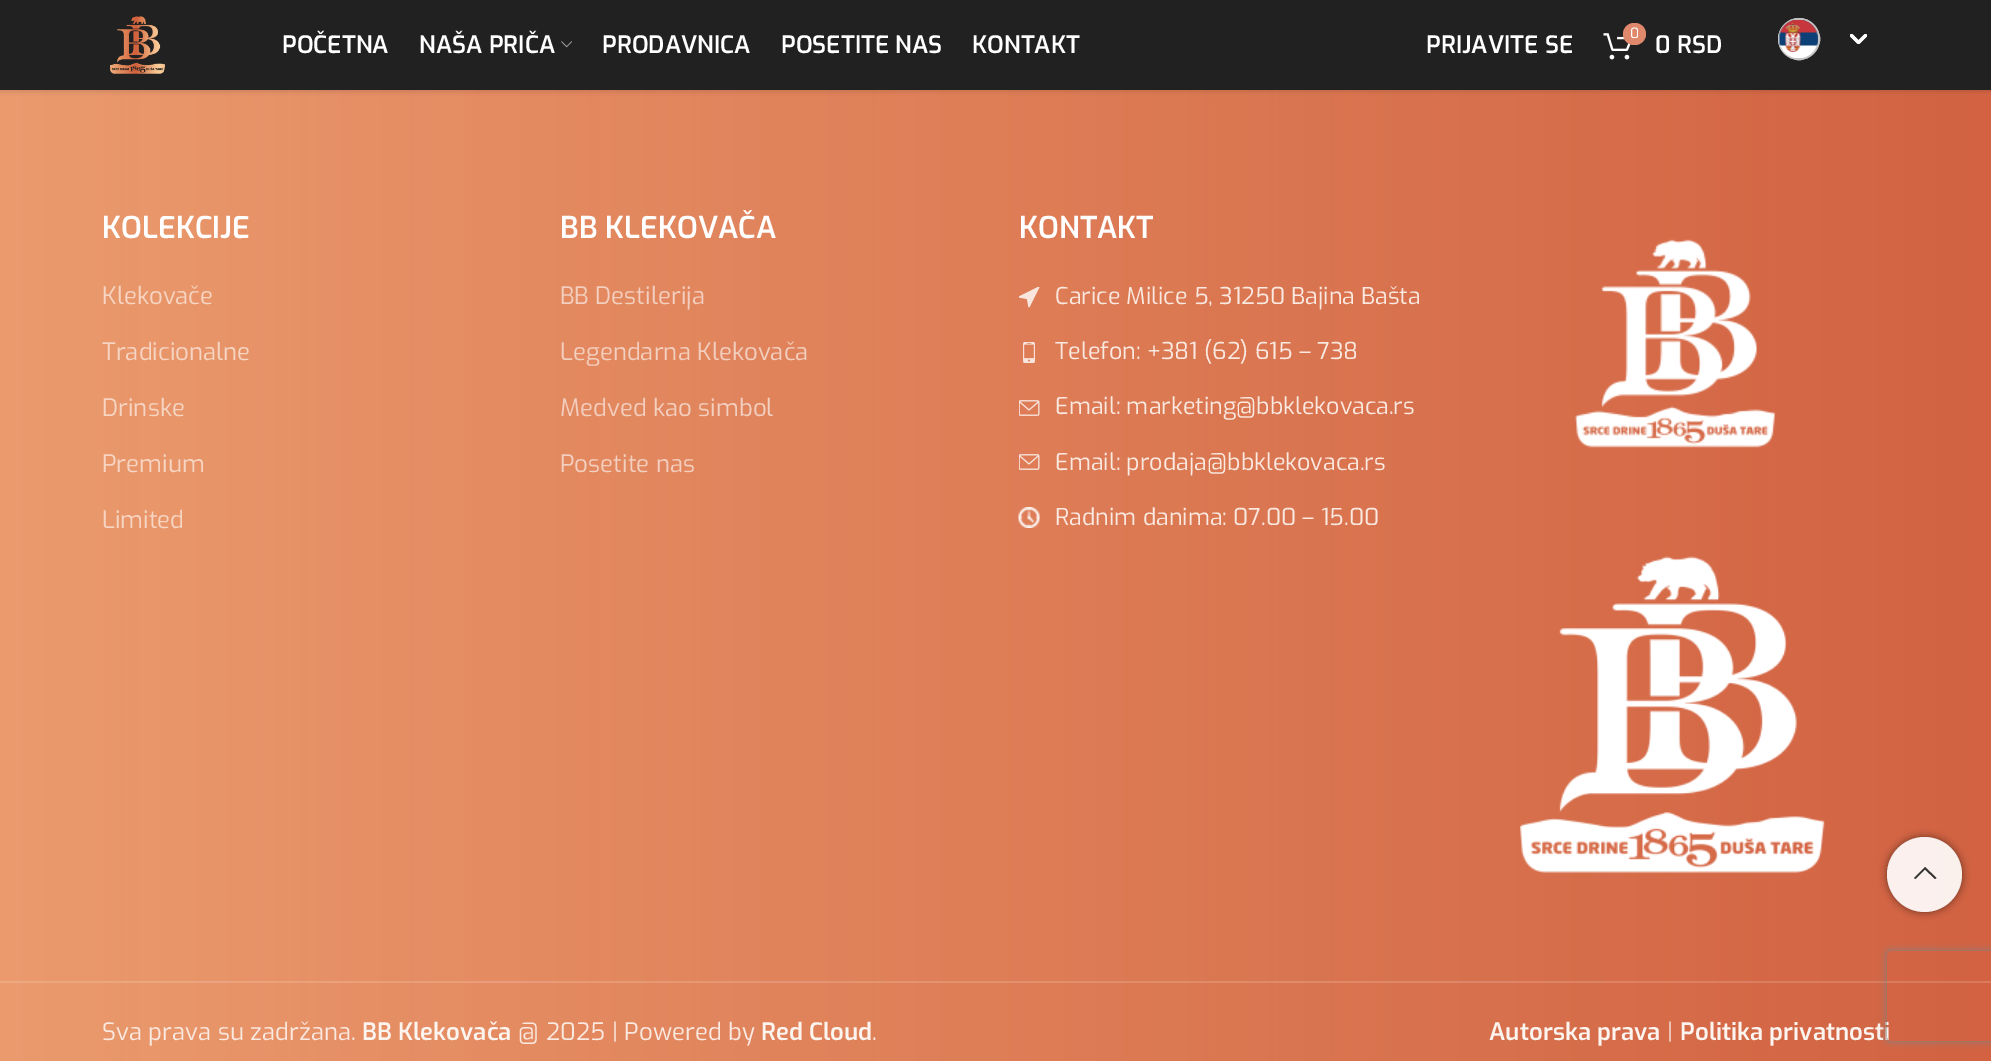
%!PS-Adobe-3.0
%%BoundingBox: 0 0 1991 1061
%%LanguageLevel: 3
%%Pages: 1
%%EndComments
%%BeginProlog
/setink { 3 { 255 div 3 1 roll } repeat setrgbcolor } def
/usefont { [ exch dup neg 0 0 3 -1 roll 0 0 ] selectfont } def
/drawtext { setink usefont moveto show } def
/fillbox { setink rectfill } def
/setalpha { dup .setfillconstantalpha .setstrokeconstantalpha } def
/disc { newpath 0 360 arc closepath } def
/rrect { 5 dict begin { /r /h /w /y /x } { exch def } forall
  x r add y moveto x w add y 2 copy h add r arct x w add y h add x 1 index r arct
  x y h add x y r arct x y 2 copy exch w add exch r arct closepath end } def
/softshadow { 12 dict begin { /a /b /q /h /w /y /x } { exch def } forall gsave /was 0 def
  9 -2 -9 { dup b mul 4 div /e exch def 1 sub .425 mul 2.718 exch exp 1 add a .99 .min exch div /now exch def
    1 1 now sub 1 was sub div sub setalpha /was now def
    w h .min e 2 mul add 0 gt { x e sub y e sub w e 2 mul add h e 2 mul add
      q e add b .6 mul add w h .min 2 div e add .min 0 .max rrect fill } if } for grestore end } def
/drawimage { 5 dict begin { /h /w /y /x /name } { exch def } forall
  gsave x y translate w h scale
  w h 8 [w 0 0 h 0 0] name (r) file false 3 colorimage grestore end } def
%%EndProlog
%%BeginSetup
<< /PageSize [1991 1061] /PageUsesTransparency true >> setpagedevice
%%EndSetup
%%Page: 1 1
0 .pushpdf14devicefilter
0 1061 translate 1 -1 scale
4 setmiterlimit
0 0 1991 1061 255 255 255 fillbox
(assets/img6.rgb) 0 90 1991 971 drawimage
0 0 0 setink
0 2 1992 90 0 2 0.1 softshadow
0 0 1991 90 33 33 33 fillbox
(assets/img1.rgb) 110 16 56 58 drawimage
(POČETNA) 282 53 /Exo-SemiBold 24 255 255 255 drawtext
(NAŠA PRIČA) 419 53 /Exo-SemiBold 24 255 255 255 drawtext
(assets/img2.rgb) 561 41 12 7 drawimage
(PRODAVNICA) 602 53 /Exo-SemiBold 24 255 255 255 drawtext
(POSETITE NAS) 781 53 /Exo-SemiBold 24 255 255 255 drawtext
(KONTAKT) 972 53 /Exo-SemiBold 24 255 255 255 drawtext
(PRIJAVITE SE) 1426 53 /Exo-SemiBold 24 255 255 255 drawtext
(assets/img3.rgb) 1603 33 28 27 drawimage
224 136 108 setink
1623 23 23 22 11 rrect fill
(0) 1630 38 /Exo-Regular 14 255 255 255 drawtext
(0 RSD) 1655 53 /Exo-SemiBold 24 255 255 255 drawtext
194 194 194 setink
2 setlinewidth
1799 39 20 disc stroke
(assets/img4.rgb) 1779 20 39 38 drawimage
255 255 255 setink
2.9 setlinewidth
1 setlinecap
1 setlinejoin
1851.5 35.5 moveto 1858.5 42.5 lineto 1865.5 35.5 lineto stroke
194 194 194 setink
2 setlinewidth
0 setlinecap
0 setlinejoin
1799 39 20 disc stroke
(assets/img5.rgb) 1779 20 40 38 drawimage
255 255 255 setink
2.9 setlinewidth
1 setlinecap
1 setlinejoin
1851.5 35.5 moveto 1858.5 42.5 lineto 1865.5 35.5 lineto stroke
(KOLEKCIJE) 102 238 /Exo-SemiBold 30 255 255 255 drawtext
(Klekovače) 102 304 /Exo-Regular 24 246 213 195 drawtext
(Tradicionalne) 102 360 /Exo-Regular 24 246 213 195 drawtext
(Drinske) 102 416 /Exo-Regular 24 246 213 195 drawtext
(Premium) 102 472 /Exo-Regular 24 246 213 195 drawtext
(Limited) 102 528 /Exo-Regular 24 246 213 195 drawtext
(BB KLEKOVAČA) 560 238 /Exo-SemiBold 30 255 255 255 drawtext
(BB Destilerija) 560 304 /Exo-Regular 24 243 207 191 drawtext
(Legendarna Klekovača) 560 360 /Exo-Regular 24 243 207 191 drawtext
(Medved kao simbol) 560 416 /Exo-Regular 24 243 207 191 drawtext
(Posetite nas) 560 472 /Exo-Regular 24 243 207 191 drawtext
(KONTAKT) 1019 238 /Exo-SemiBold 30 255 255 255 drawtext
(assets/img7.rgb) 1019 287 21 21 drawimage
(Carice Milice 5, 31250 Bajina Bašta) 1055 304 /Exo-Regular 23.25 250 233 225 drawtext
(assets/img8.rgb) 1023 342 12 21 drawimage
(Telefon: +381 \(62\) 615 – 738) 1055 359 /Exo-Regular 23.25 250 233 225 drawtext
(assets/img9.rgb) 1019 400 21 16 drawimage
(Email: marketing@bbklekovaca.rs) 1055 414 /Exo-Regular 23.25 250 233 225 drawtext
(assets/img9.rgb) 1019 454 21 16 drawimage
(Email: prodaja@bbklekovaca.rs) 1055 470 /Exo-Regular 23.25 250 233 225 drawtext
(assets/img10.rgb) 1018 507 22 21 drawimage
(Radnim danima: 07.00 – 15.00) 1055 525 /Exo-Regular 23.25 250 233 225 drawtext
(assets/img11.rgb) 1574 239 202 209 drawimage
(assets/img12.rgb) 1520 556 305 318 drawimage
0.15 setalpha
0 981 1991 2 255 255 255 fillbox
1 setalpha
(Sva prava su zadržana.) 102 1040 /Exo-Regular 24 250 233 225 drawtext
(BB Klekovača) 362 1040 /Exo-SemiBold 24 252 244 239 drawtext
(@) 518 1040 /Exo-Regular 24 250 233 225 drawtext
(2025 | Powered by) 546 1040 /Exo-Regular 24 250 233 225 drawtext
(Red Cloud) 761 1040 /Exo-SemiBold 24 252 244 239 drawtext
(.) 872 1040 /Exo-Regular 24 250 233 225 drawtext
(Autorska prava) 1489 1040 /Exo-SemiBold 24 252 244 239 drawtext
(|) 1667 1040 /Exo-Regular 24 247 225 218 drawtext
(Politika privatnosti) 1680 1040 /Exo-SemiBold 24 252 244 239 drawtext
gsave
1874 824 moveto 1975 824 lineto 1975 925 lineto 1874 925 lineto closepath 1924.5 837 moveto 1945 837 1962 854 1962 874.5 curveto 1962 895 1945 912 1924.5 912 curveto 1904 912 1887 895 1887 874.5 curveto 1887 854 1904 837 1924.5 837 curveto closepath eoclip newpath
0 0 0 setink
1887 837 75 75 37.5 4 0.5 softshadow
grestore
0.9 setalpha
255 255 255 setink
1924.5 874.5 37.5 disc fill
1 setalpha
51 51 51 setink
1935 879 moveto 1936.5 878 lineto 1925 867 lineto 1914 878 lineto 1915.5 879 lineto 1925 869.5 lineto closepath fill
gsave
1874 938 moveto 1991 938 lineto 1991 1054 lineto 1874 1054 lineto closepath 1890 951 moveto 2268 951 lineto 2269.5 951 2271 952.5 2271 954 curveto 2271 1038 lineto 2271 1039.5 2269.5 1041 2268 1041 curveto 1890 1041 lineto 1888.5 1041 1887 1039.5 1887 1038 curveto 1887 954 lineto 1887 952.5 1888.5 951 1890 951 curveto closepath eoclip newpath
128 128 128 setink
1887 951 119 90 3 4 1 softshadow
grestore
.poppdf14devicefilter showpage
%%EOF
